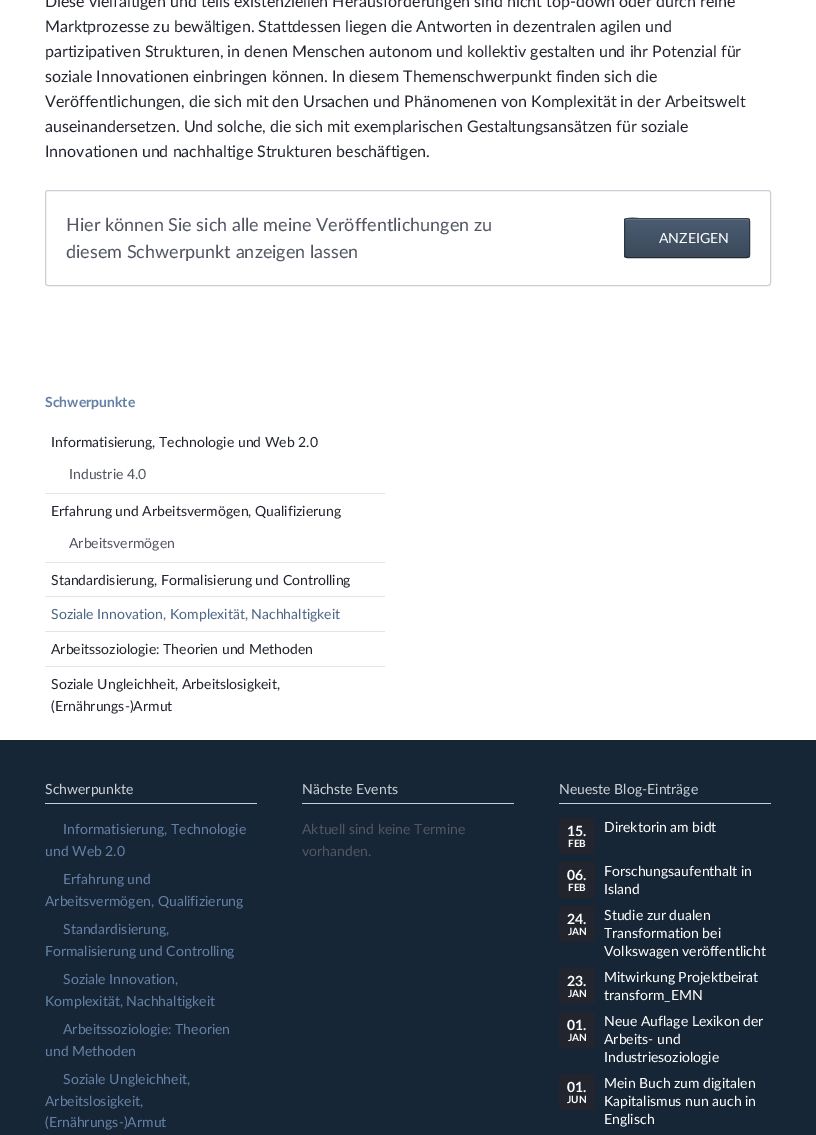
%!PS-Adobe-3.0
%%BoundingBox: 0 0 816 1135
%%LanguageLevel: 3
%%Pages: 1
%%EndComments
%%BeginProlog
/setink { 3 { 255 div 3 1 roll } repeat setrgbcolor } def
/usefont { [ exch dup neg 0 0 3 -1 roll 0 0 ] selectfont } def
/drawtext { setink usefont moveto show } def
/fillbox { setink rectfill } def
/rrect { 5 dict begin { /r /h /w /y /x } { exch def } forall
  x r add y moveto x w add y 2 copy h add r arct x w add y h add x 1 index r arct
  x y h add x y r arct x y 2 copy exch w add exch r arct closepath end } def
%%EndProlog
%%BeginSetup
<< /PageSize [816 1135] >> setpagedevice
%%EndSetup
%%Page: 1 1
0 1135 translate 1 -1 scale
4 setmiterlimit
0 0 816 1135 255 255 255 fillbox
(Diese vielfältigen und teils existenziellen Herausforderungen sind nicht top-down oder durch reine) 45 7 /Lato-Regular 16 34 37 46 drawtext
(Marktprozesse zu bewältigen. Stattdessen liegen die Antworten in dezentralen agilen und) 45 32 /Lato-Regular 16 34 37 46 drawtext
(partizipativen Strukturen, in denen Menschen autonom und kollektiv gestalten und ihr Potenzial für) 45 57 /Lato-Regular 16 34 37 46 drawtext
(soziale Innovationen einbringen können. In diesem Themenschwerpunkt finden sich die) 45 82 /Lato-Regular 16 34 37 46 drawtext
(Veröffentlichungen, die sich mit den Ursachen und Phänomenen von Komplexität in der Arbeitswelt) 45 107 /Lato-Regular 16 34 37 46 drawtext
(auseinandersetzen. Und solche, die sich mit exemplarischen Gestaltungsansätzen für soziale) 45 132 /Lato-Regular 16 34 37 46 drawtext
(Innovationen und nachhaltige Strukturen beschäftigen.) 45 157 /Lato-Regular 16 34 37 46 drawtext
202 208 216 setink
45.5 190.5 725 95 2.5 rrect stroke
(Hier können Sie sich alle meine Veröffentlichungen zu) 66 231 /Lato-Regular 18 82 86 99 drawtext
(diesem Schwerpunkt anzeigen lassen) 66 258 /Lato-Regular 18 82 86 99 drawtext
gsave
624 218 126 40 3 rrect clip newpath
gsave 624 219 moveto 750 219 lineto 750 257 lineto 624 257 lineto closepath clip newpath
<< /ShadingType 2 /ColorSpace /DeviceRGB /Coords [687 219 687 257] /Extend [true true] /Function << /FunctionType 2 /Domain [0 1] /C0 [0.294 0.361 0.447] /C1 [0.231 0.286 0.353] /N 1 >> >> shfill grestore
grestore
122 132 145 setink
627 220 moveto 747 220 lineto 749 221 lineto 749 222 lineto 749 221 749 220 748 219 curveto 647 219 lineto 641 219 625 214 625 222 curveto 625 221 626 220 627 220 curveto closepath fill
55 68 84 setink
625 219 moveto 627 218.5 lineto 747 218.5 lineto 749 219 lineto stroke
45 55 68 setink
749 219 moveto 749.5 221 lineto 749.5 255 lineto 749 257 lineto stroke
35 43 53 setink
749 257 moveto 747 257.5 lineto 627 257.5 lineto 625 257 lineto stroke
45 55 68 setink
625 257 moveto 624.5 255 lineto 624.5 221 lineto 625 219 lineto stroke
(ANZEIGEN) 659 243 /Lato-Regular 14 255 255 255 drawtext
(Schwerpunkte) 45 407 /Lato-Bold 14 100 128 165 drawtext
(Informatisierung, Technologie und Web 2.0) 51 447 /Lato-Regular 14 34 37 46 drawtext
(Industrie 4.0) 69 479 /Lato-Regular 14 82 86 99 drawtext
45 493 340 1 224 229 235 fillbox
(Erfahrung und Arbeitsvermögen, Qualifizierung) 51 516 /Lato-Regular 14 34 37 46 drawtext
(Arbeitsvermögen) 69 548 /Lato-Regular 14 82 86 99 drawtext
45 562 340 1 224 229 235 fillbox
(Standardisierung, Formalisierung und Controlling) 51 585 /Lato-Regular 14 34 37 46 drawtext
45 596 340 1 224 229 235 fillbox
(Soziale Innovation, Komplexität, Nachhaltigkeit) 51 619 /Lato-Regular 14 79 103 135 drawtext
45 631 340 1 224 229 235 fillbox
(Arbeitssoziologie: Theorien und Methoden) 51 654 /Lato-Regular 14 34 37 46 drawtext
45 666 340 1 224 229 235 fillbox
(Soziale Ungleichheit, Arbeitslosigkeit,) 51 689 /Lato-Regular 14 34 37 46 drawtext
(\(Ernährungs-\)Armut) 51 711 /Lato-Regular 14 34 37 46 drawtext
0 740 816 395 23 38 54 fillbox
45 803 212 1 202 208 216 fillbox
(Schwerpunkte) 45 794 /Lato-Regular 14 202 208 216 drawtext
(Informatisierung, Technologie) 63 834 /Lato-Regular 14 100 128 165 drawtext
(und Web 2.0) 45 856 /Lato-Regular 14 100 128 165 drawtext
(Erfahrung und) 63 884 /Lato-Regular 14 100 128 165 drawtext
(Arbeitsvermögen, Qualifizierung) 45 906 /Lato-Regular 14 100 128 165 drawtext
(Standardisierung,) 63 934 /Lato-Regular 14 100 128 165 drawtext
(Formalisierung und Controlling) 45 956 /Lato-Regular 14 100 128 165 drawtext
(Soziale Innovation,) 63 984 /Lato-Regular 14 100 128 165 drawtext
(Komplexität, Nachhaltigkeit) 45 1006 /Lato-Regular 14 100 128 165 drawtext
(Arbeitssoziologie: Theorien) 63 1034 /Lato-Regular 14 100 128 165 drawtext
(und Methoden) 45 1056 /Lato-Regular 14 100 128 165 drawtext
(Soziale Ungleichheit,) 63 1084 /Lato-Regular 14 100 128 165 drawtext
(Arbeitslosigkeit,) 45 1106 /Lato-Regular 14 100 128 165 drawtext
(\(Ernährungs-\)Armut) 45 1127 /Lato-Regular 14 100 128 165 drawtext
302 803 212 1 202 208 216 fillbox
(Nächste Events) 302 794 /Lato-Regular 14 202 208 216 drawtext
(Aktuell sind keine Termine) 302 834 /Lato-Regular 14 82 86 99 drawtext
(vorhanden.) 302 856 /Lato-Regular 14 82 86 99 drawtext
559 803 212 1 202 208 216 fillbox
(Neueste Blog-Einträge) 559 794 /Lato-Regular 14 202 208 216 drawtext
559 818 36 36 34 37 46 fillbox
(15.) 567 836 /Lato-Bold 14 255 255 255 drawtext
(FEB) 568 847 /Lato-Bold 10 255 255 255 drawtext
(Direktorin am bidt) 604 832 /Lato-Regular 14 255 255 255 drawtext
559 862 36 36 34 37 46 fillbox
(06.) 567 880 /Lato-Bold 14 255 255 255 drawtext
(FEB) 568 891 /Lato-Bold 10 255 255 255 drawtext
(Forschungsaufenthalt in) 604 876 /Lato-Regular 14 255 255 255 drawtext
(Island) 604 894 /Lato-Regular 14 255 255 255 drawtext
559 906 36 36 34 37 46 fillbox
(24.) 567 924 /Lato-Bold 14 255 255 255 drawtext
(JAN) 568 935 /Lato-Bold 10 255 255 255 drawtext
(Studie zur dualen) 604 920 /Lato-Regular 14 255 255 255 drawtext
(Transformation bei) 604 938 /Lato-Regular 14 255 255 255 drawtext
(Volkswagen veröffentlicht) 604 956 /Lato-Regular 14 255 255 255 drawtext
559 968 36 36 34 37 46 fillbox
(23.) 567 986 /Lato-Bold 14 255 255 255 drawtext
(JAN) 568 997 /Lato-Bold 10 255 255 255 drawtext
(Mitwirkung Projektbeirat) 604 982 /Lato-Regular 14 255 255 255 drawtext
(transform_EMN) 604 1000 /Lato-Regular 14 255 255 255 drawtext
559 1012 36 36 34 37 46 fillbox
(01.) 567 1030 /Lato-Bold 14 255 255 255 drawtext
(JAN) 568 1041 /Lato-Bold 10 255 255 255 drawtext
(Neue Auflage Lexikon der) 604 1026 /Lato-Regular 14 255 255 255 drawtext
(Arbeits- und) 604 1044 /Lato-Regular 14 255 255 255 drawtext
(Industriesoziologie) 604 1062 /Lato-Regular 14 255 255 255 drawtext
559 1074 36 36 34 37 46 fillbox
(01.) 567 1092 /Lato-Bold 14 255 255 255 drawtext
(JUN) 567 1103 /Lato-Bold 10 255 255 255 drawtext
(Mein Buch zum digitalen) 604 1088 /Lato-Regular 14 255 255 255 drawtext
(Kapitalismus nun auch in) 604 1106 /Lato-Regular 14 255 255 255 drawtext
(Englisch) 604 1124 /Lato-Regular 14 255 255 255 drawtext
showpage
%%EOF
